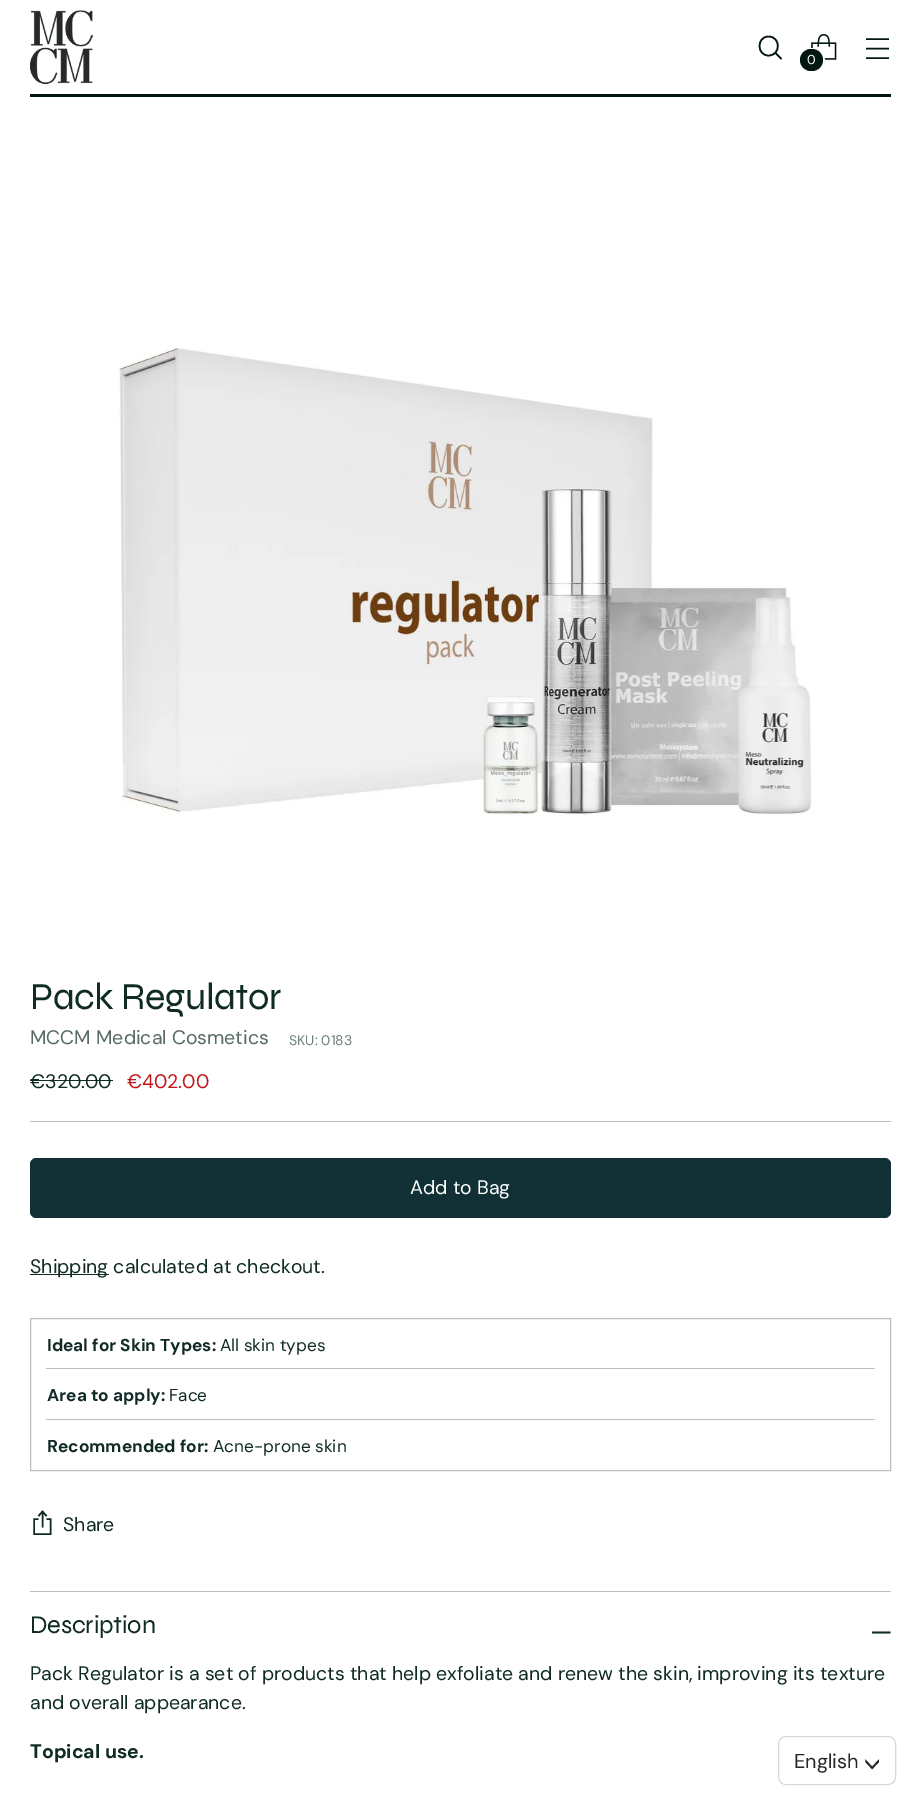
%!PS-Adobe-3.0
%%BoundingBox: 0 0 921 1810
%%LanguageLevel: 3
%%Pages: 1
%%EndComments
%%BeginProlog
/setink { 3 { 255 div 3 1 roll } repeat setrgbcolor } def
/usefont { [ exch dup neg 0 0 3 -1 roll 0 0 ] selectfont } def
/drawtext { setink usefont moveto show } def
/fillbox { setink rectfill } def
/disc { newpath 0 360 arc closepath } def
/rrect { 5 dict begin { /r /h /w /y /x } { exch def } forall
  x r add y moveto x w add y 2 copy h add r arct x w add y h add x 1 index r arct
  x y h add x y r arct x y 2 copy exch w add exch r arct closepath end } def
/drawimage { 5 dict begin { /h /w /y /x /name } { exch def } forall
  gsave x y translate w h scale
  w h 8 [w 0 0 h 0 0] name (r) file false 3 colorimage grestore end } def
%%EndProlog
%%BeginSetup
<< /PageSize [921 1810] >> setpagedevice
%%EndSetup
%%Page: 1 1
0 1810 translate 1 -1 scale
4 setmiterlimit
0 0 921 1810 255 255 255 fillbox
30 94 861 3 3 22 18 fillbox
(assets/img1.rgb) 30 10 63 74 drawimage
1.6 setlinewidth
1 setlinecap
768.5 55.5 moveto 781 55.5 781 36.5 768.5 36.5 curveto 756.5 36.5 756.5 55.5 768.5 55.5 curveto closepath stroke
0 setlinecap
775.5 53 moveto 781.5 59 lineto stroke
(assets/img2.rgb) 811 34 26 26 drawimage
255 255 255 setink
2 setlinewidth
812 61 12 disc stroke
3 22 18 setink
800 49 23 22 11 rrect fill
(0) 807 64 /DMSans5-Regular 13 255 255 255 drawtext
3 22 18 setink
1.6 setlinewidth
866 48.5 moveto 889 48.5 lineto 866 39 moveto 889 39 lineto 866 58 moveto 889 58 lineto stroke
(assets/img3.rgb) 118 347 694 469 drawimage
30 1121 861 1 189 191 191 fillbox
/Syne-Regular 38 usefont
16 43 38 setink
30 1009 moveto -0.4 0 (Pack Regulator) ashow
(MCCM Medical Cosmetics) 30 1044 /DMSans-Regular 19.5 88 107 103 drawtext
(SKU: 0183) 289 1045 /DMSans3-Regular 14 112 128 125 drawtext
(€320.00) 30 1088 /DMSans-Regular 19.5 16 43 38 drawtext
30 1080 83 1 16 43 38 fillbox
(€402.00) 127 1088 /DMSans-Regular 19.5 195 24 24 drawtext
17 48 53 setink
36 1158 moveto 33 1158 30 1161 30 1164 curveto 30 1212 lineto 30 1215 33 1218 36 1218 curveto 885 1218 lineto 888 1218 891 1215 891 1212 curveto 891 1164 lineto 891 1161 888 1158 885 1158 curveto closepath fill
(Add to Bag) 410 1194 /DMSans-Regular 19.5 255 255 255 drawtext
30 1274 79 1 16 43 38 fillbox
(Shipping calculated at checkout.) 30 1273 /DMSans-Regular 19.5 16 43 38 drawtext
189 191 191 setink
1 setlinewidth
30.5 1318.5 860 152 rectstroke
(Ideal for Skin Types:) 47 1351 /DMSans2-Bold 17.25 16 43 38 drawtext
(All skin types) 220 1351 /DMSans2-Regular 17.25 16 43 38 drawtext
46 1368 829 1 189 191 191 fillbox
(Area to apply:) 47 1401 /DMSans2-Bold 17.25 16 43 38 drawtext
(Face) 169 1401 /DMSans2-Regular 17.25 16 43 38 drawtext
46 1419 829 1 189 191 191 fillbox
(Recommended for:) 47 1452 /DMSans2-Bold 17.25 16 43 38 drawtext
(Acne-prone skin) 213 1452 /DMSans2-Regular 17.25 16 43 38 drawtext
1.6 setlinewidth
38.5 1519 moveto 34 1519 lineto 34 1534 lineto 50.5 1534 lineto 50.5 1519 lineto 46.5 1519 lineto 42.5 1527.5 moveto 42.5 1512.5 lineto 46.5 1516 moveto 42.5 1511.5 lineto 38.5 1516 lineto stroke
(Share) 63 1531 /DMSans-Regular 19.5 16 43 38 drawtext
30 1591 861 1 189 191 191 fillbox
/Syne-Regular 25.5 usefont
16 43 38 setink
30 1633 moveto -0.25 0 (Description) ashow
1.7 setlinewidth
872 1632.5 moveto 890.5 1632.5 lineto stroke
(Pack Regulator is a set of products that help exfoliate and renew the skin, improving its texture) 30 1680 /DMSans-Regular 19.5 16 43 38 drawtext
(and overall appearance.) 30 1709 /DMSans-Regular 19.5 16 43 38 drawtext
(Topical use.) 30 1758 /DMSans-Bold 19.5 16 43 38 drawtext
217 217 217 setink
1 setlinewidth
778.5 1736.5 117 48 7.5 rrect stroke
(English) 794 1768 /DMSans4-Regular 20 38 38 38 drawtext
/DMSans4-Regular 30 usefont
gsave 864 1756 translate 90 rotate 0 0 moveto -8 0 (>) ashow grestore
showpage
%%EOF
